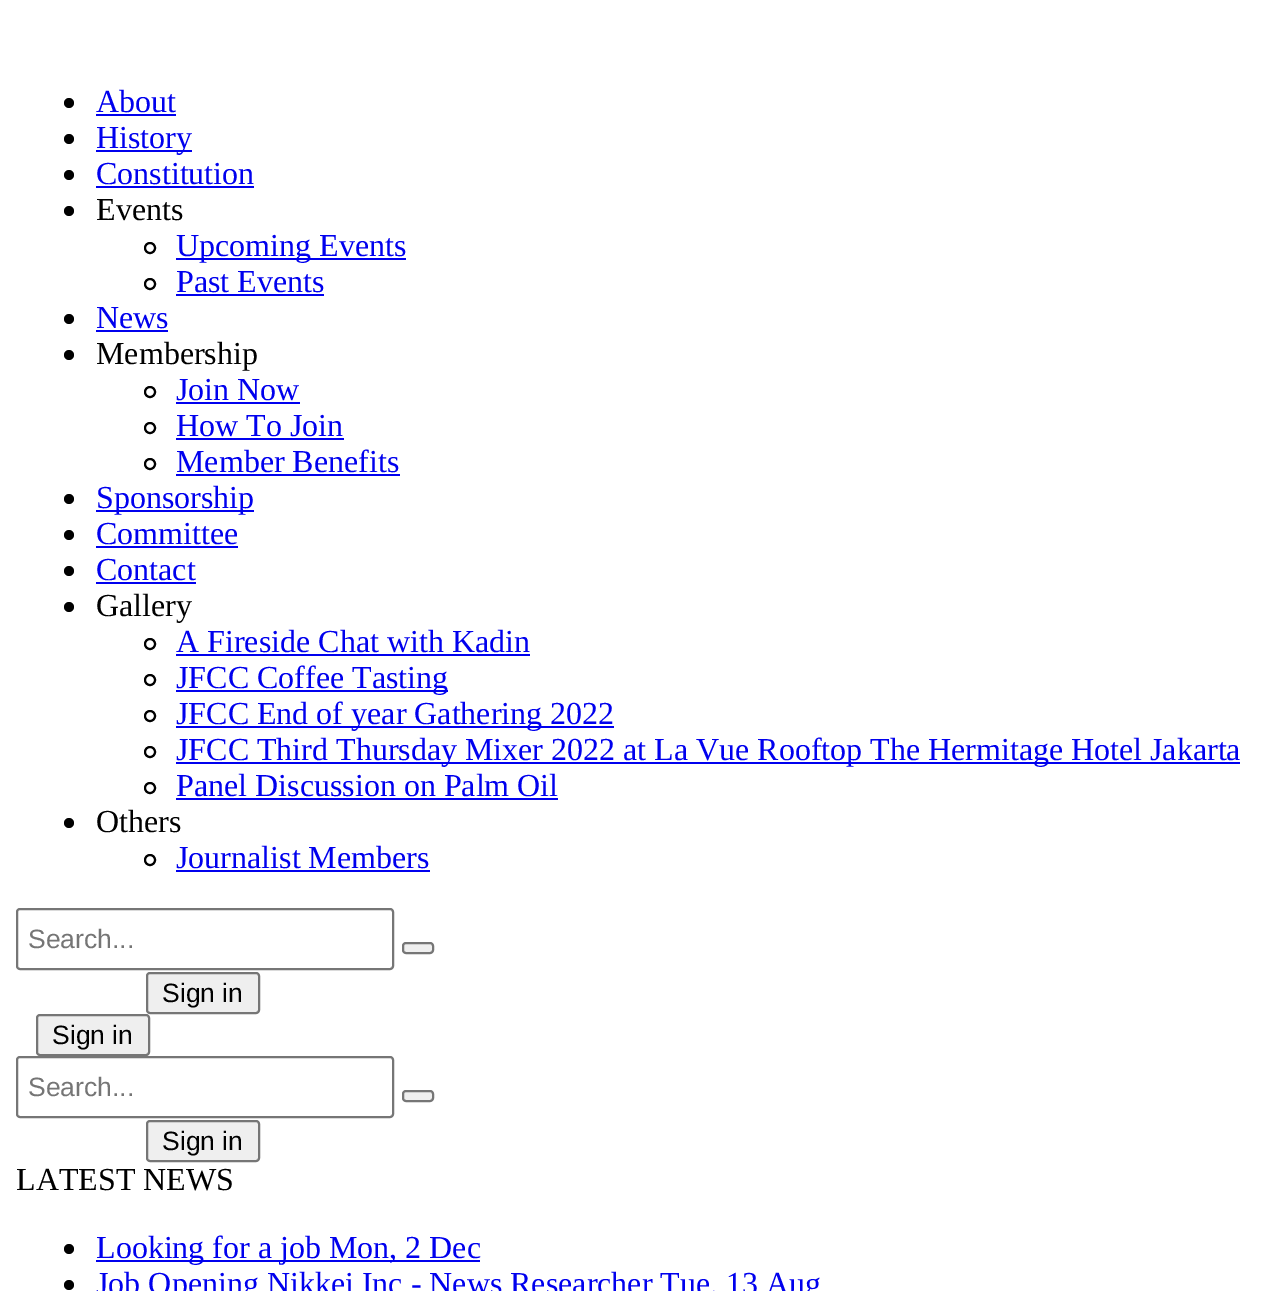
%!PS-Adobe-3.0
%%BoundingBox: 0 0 1274 1291
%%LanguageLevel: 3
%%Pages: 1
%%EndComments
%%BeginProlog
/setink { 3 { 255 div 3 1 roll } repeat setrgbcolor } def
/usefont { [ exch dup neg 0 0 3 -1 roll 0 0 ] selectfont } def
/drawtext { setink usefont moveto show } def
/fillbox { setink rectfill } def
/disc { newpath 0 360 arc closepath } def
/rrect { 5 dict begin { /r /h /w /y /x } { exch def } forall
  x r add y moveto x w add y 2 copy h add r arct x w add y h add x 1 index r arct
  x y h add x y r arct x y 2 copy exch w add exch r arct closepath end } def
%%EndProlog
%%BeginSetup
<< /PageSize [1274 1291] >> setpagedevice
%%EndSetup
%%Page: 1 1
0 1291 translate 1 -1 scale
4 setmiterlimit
0 0 1274 1291 255 255 255 fillbox
0 0 0 setink
69 103 5 disc fill
(About) 96 112 /LiberationSerif-Regular 32 0 0 238 drawtext
96 114 80 2 0 0 238 fillbox
0 0 0 setink
69 139 5 disc fill
96 150 96 2 0 0 238 fillbox
(History) 96 148 /LiberationSerif-Regular 32 0 0 238 drawtext
0 0 0 setink
69 175 5 disc fill
(Constitution) 96 184 /LiberationSerif-Regular 32 0 0 238 drawtext
96 186 158 2 0 0 238 fillbox
0 0 0 setink
69 211 5 disc fill
(Events) 96 220 /LiberationSerif-Regular 32 0 0 0 drawtext
2 setlinewidth
150 248 5 disc stroke
176 258 230 2 0 0 238 fillbox
(Upcoming Events) 176 256 /LiberationSerif-Regular 32 0 0 238 drawtext
0 0 0 setink
150 284 5 disc stroke
(Past Events) 176 292 /LiberationSerif-Regular 32 0 0 238 drawtext
176 294 148 2 0 0 238 fillbox
0 0 0 setink
69 319 5 disc fill
(News) 96 328 /LiberationSerif-Regular 32 0 0 238 drawtext
96 330 72 2 0 0 238 fillbox
0 0 0 setink
69 355 5 disc fill
(Membership) 96 364 /LiberationSerif-Regular 32 0 0 0 drawtext
150 392 5 disc stroke
(Join Now) 176 400 /LiberationSerif-Regular 32 0 0 238 drawtext
176 402 124 2 0 0 238 fillbox
0 0 0 setink
150 428 5 disc stroke
(How To Join) 176 436 /LiberationSerif-Regular 32 0 0 238 drawtext
176 438 168 2 0 0 238 fillbox
0 0 0 setink
150 464 5 disc stroke
(Member Benefits) 176 472 /LiberationSerif-Regular 32 0 0 238 drawtext
176 474 224 2 0 0 238 fillbox
0 0 0 setink
69 499 5 disc fill
96 510 158 2 0 0 238 fillbox
(Sponsorship) 96 508 /LiberationSerif-Regular 32 0 0 238 drawtext
0 0 0 setink
69 535 5 disc fill
(Committee) 96 544 /LiberationSerif-Regular 32 0 0 238 drawtext
96 546 142 2 0 0 238 fillbox
0 0 0 setink
69 571 5 disc fill
(Contact) 96 580 /LiberationSerif-Regular 32 0 0 238 drawtext
96 582 100 2 0 0 238 fillbox
0 0 0 setink
69 607 5 disc fill
(Gallery) 96 616 /LiberationSerif-Regular 32 0 0 0 drawtext
150 644 5 disc stroke
(A Fireside Chat with Kadin) 176 652 /LiberationSerif-Regular 32 0 0 238 drawtext
176 654 354 2 0 0 238 fillbox
0 0 0 setink
150 680 5 disc stroke
176 690 272 2 0 0 238 fillbox
(JFCC Coffee Tasting) 176 688 /LiberationSerif-Regular 32 0 0 238 drawtext
0 0 0 setink
150 716 5 disc stroke
176 726 438 2 0 0 238 fillbox
(JFCC End of year Gathering 2022) 176 724 /LiberationSerif-Regular 32 0 0 238 drawtext
0 0 0 setink
150 752 5 disc stroke
176 762 1064 2 0 0 238 fillbox
(JFCC Third Thursday Mixer 2022 at La Vue Rooftop The Hermitage Hotel Jakarta) 176 760 /LiberationSerif-Regular 32 0 0 238 drawtext
0 0 0 setink
150 788 5 disc stroke
(Panel Discussion on Palm Oil) 176 796 /LiberationSerif-Regular 32 0 0 238 drawtext
176 798 382 2 0 0 238 fillbox
0 0 0 setink
69 823 5 disc fill
(Others) 96 832 /LiberationSerif-Regular 32 0 0 0 drawtext
150 860 5 disc stroke
(Journalist Members) 176 868 /LiberationSerif-Regular 32 0 0 238 drawtext
176 870 254 2 0 0 238 fillbox
118 118 118 setink
17 909 376 60 3 rrect stroke
(Search...) 28 948 /LiberationSans-Regular 26.5 117 117 117 drawtext
239 239 239 setink
403 943 30 10 3 rrect gsave fill grestore
118 118 118 setink
stroke
239 239 239 setink
147 973 112 40 3 rrect gsave fill grestore
118 118 118 setink
stroke
(Sign in) 162 1002 /LiberationSans-Regular 26.5 0 0 0 drawtext
239 239 239 setink
37 1015 112 40 3 rrect gsave fill grestore
118 118 118 setink
stroke
(Sign in) 52 1044 /LiberationSans-Regular 26.5 0 0 0 drawtext
118 118 118 setink
17 1057 376 60 3 rrect stroke
(Search...) 28 1096 /LiberationSans-Regular 26.5 117 117 117 drawtext
239 239 239 setink
403 1091 30 10 3 rrect gsave fill grestore
118 118 118 setink
stroke
239 239 239 setink
147 1121 112 40 3 rrect gsave fill grestore
118 118 118 setink
stroke
(Sign in) 162 1150 /LiberationSans-Regular 26.5 0 0 0 drawtext
(LATEST NEWS) 16 1190 /LiberationSerif-Regular 32 0 0 0 drawtext
69 1249 5 disc fill
96 1260 384 2 0 0 238 fillbox
(Looking for a job Mon, 2 Dec) 96 1258 /LiberationSerif-Regular 32 0 0 238 drawtext
0 0 0 setink
69 1285 5 disc fill
(Job Opening Nikkei Inc - News Researcher Tue, 13 Aug) 96 1294 /LiberationSerif-Regular 32 0 0 238 drawtext
showpage
%%EOF
